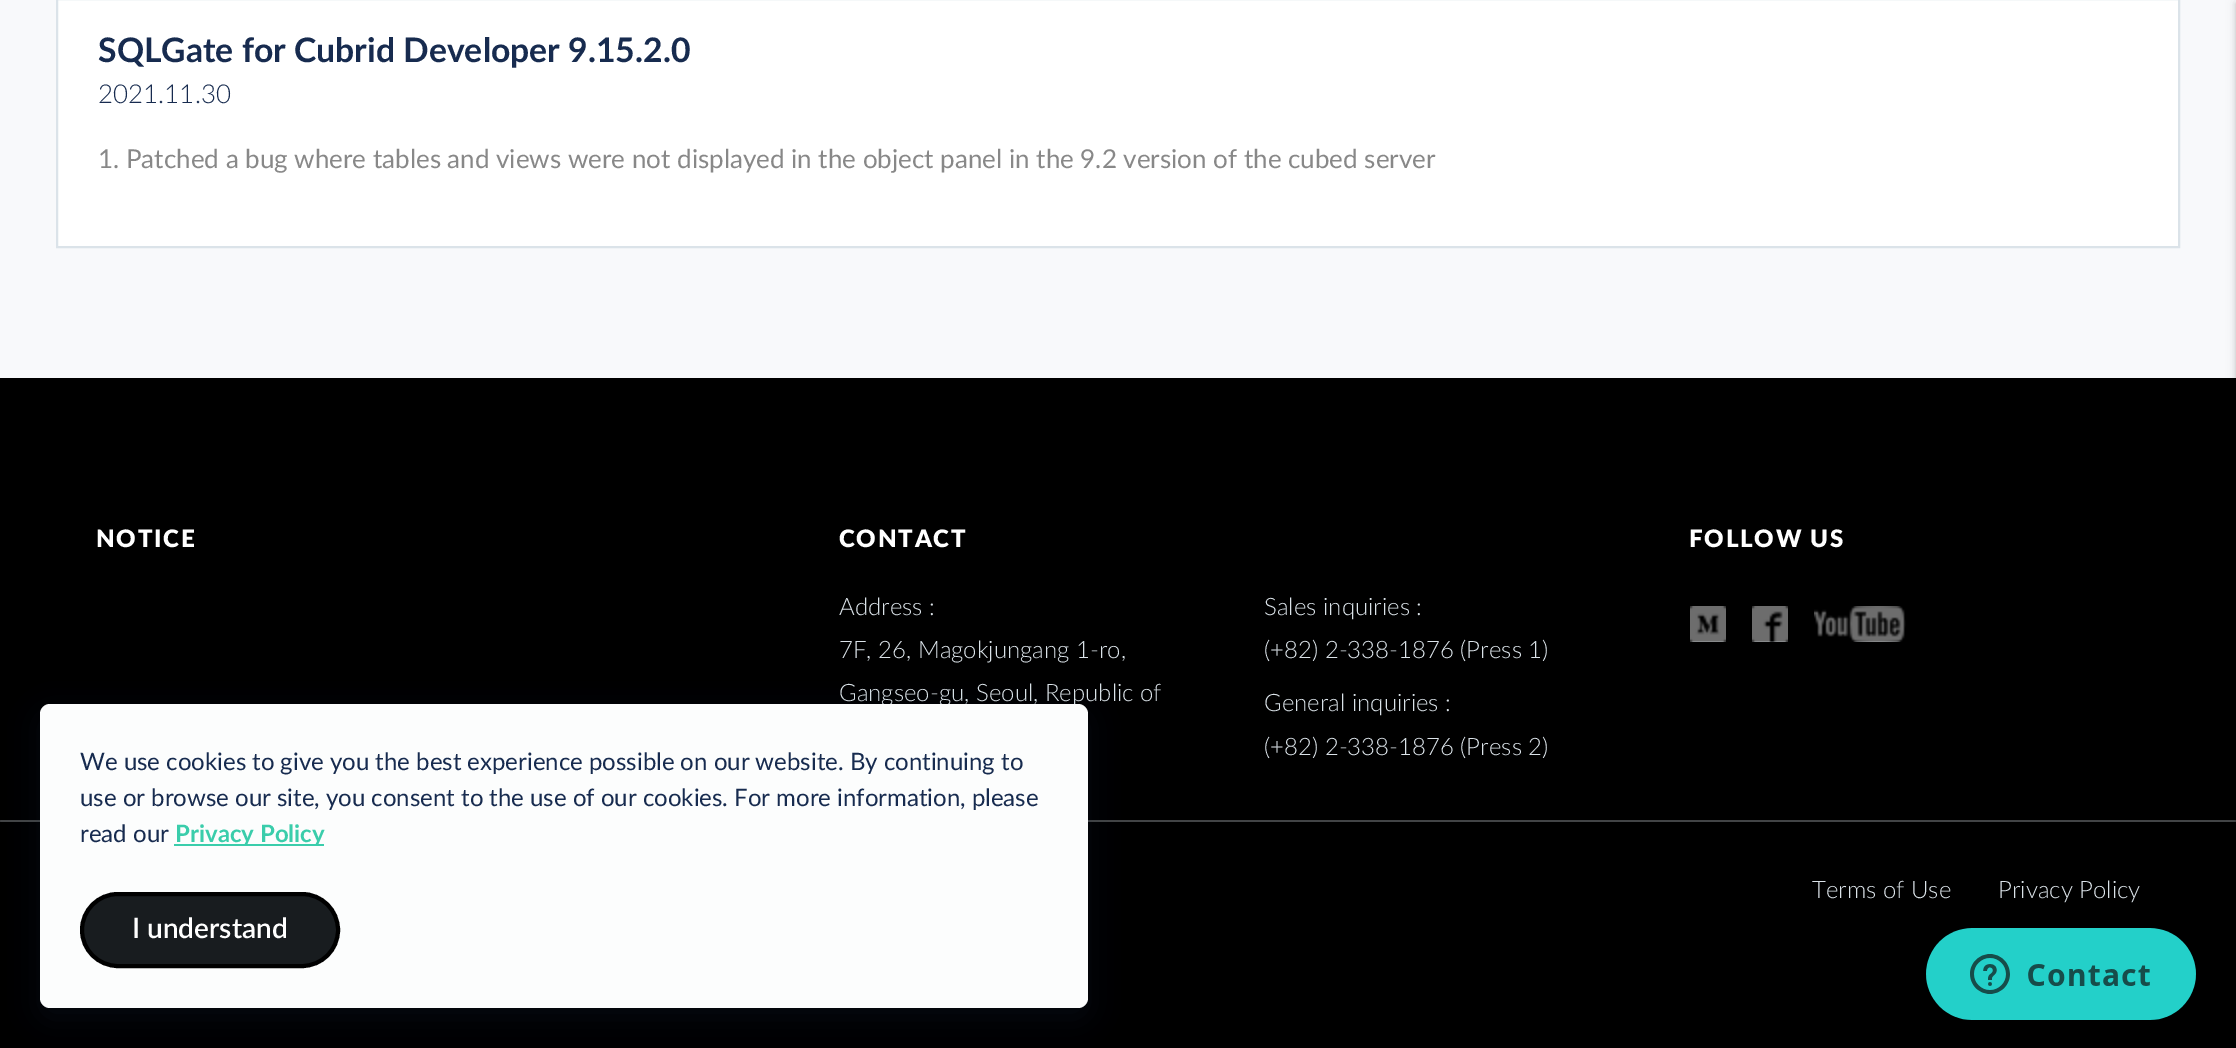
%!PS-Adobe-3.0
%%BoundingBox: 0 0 2236 1048
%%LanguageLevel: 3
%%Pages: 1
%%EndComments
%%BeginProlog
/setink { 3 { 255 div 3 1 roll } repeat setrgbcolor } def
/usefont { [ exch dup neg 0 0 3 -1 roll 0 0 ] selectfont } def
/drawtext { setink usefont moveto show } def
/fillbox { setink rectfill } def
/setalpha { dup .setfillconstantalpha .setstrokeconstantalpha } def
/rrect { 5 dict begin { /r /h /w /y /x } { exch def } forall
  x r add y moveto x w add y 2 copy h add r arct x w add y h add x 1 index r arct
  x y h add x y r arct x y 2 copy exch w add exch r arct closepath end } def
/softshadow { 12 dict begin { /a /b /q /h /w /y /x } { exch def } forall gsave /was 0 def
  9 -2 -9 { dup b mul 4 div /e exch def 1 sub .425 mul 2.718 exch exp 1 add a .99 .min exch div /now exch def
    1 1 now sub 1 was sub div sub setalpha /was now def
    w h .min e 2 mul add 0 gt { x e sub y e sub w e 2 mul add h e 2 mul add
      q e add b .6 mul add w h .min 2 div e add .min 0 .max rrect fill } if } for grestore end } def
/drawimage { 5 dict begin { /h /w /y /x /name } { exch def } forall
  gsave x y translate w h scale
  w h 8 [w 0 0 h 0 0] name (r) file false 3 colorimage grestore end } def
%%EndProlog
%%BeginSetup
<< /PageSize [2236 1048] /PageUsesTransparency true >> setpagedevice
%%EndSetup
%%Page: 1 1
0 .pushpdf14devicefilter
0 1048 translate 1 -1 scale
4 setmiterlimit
0 0 2236 1048 0 0 0 fillbox
0 0 2236 378 248 249 251 fillbox
255 255 255 setink
57 -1 moveto 2179 -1 lineto 2179 247 lineto 57 247 lineto closepath gsave fill grestore
219 227 233 setink
2 setlinewidth
stroke
(SQLGate for Cubrid Developer 9.15.2.0) 98 62 /Lato-Bold 33.75 23 43 79 drawtext
(2021.11.30) 98 103 /Lato-Light 26 23 43 79 drawtext
(1. Patched a bug where tables and views were not displayed in the object panel in the 9.2 version of the cubed server) 98 168 /Lato-Regular 26 136 136 136 drawtext
66 68 70 setink
0 820 2236 2 1 rrect fill
0 0 0 setink
2236 2 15 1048 0 5 0.12 softshadow
2236 4 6 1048 0 2 0.14 softshadow
/Lato-Black 24 usefont
255 255 255 setink
96 547 moveto 1.75 0 (NOTICE) ashow
839 547 moveto 1.75 0 (CONTACT) ashow
(Address :) 839 615 /Lato-Light 24 219 227 233 drawtext
(7F, 26, Magokjungang 1-ro,) 839 658 /Lato-Light 24 219 227 233 drawtext
(Gangseo-gu, Seoul, Republic of) 839 701 /Lato-Light 24 219 227 233 drawtext
/Lato-Black 24 usefont
255 255 255 setink
1689 547 moveto 1.75 0 (FOLLOW US) ashow
(assets/img1.rgb) 1690 606 36 36 drawimage
(assets/img2.rgb) 1752 606 36 36 drawimage
(assets/img3.rgb) 1814 606 92 36 drawimage
(Sales inquiries :) 1264 615 /Lato-Light 24 219 227 233 drawtext
(\(+82\) 2-338-1876 \(Press 1\)) 1264 658 /Lato-Light 24 219 227 233 drawtext
(General inquiries :) 1264 711 /Lato-Light 24 219 227 233 drawtext
(\(+82\) 2-338-1876 \(Press 2\)) 1264 755 /Lato-Light 24 219 227 233 drawtext
(Terms of Use) 1812 898 /Lato-Light 24 219 227 233 drawtext
(Privacy Policy) 1998 898 /Lato-Light 24 219 227 233 drawtext
23 43 79 setink
40 714 1048 304 10 15 0.2 softshadow
252 253 253 setink
40 704 1048 304 10 rrect fill
(We use cookies to give you the best experience possible on our website. By continuing to) 80 770 /Lato-Regular 24 23 43 79 drawtext
(use or browse our site, you consent to the use of our cookies. For more information, please) 80 806 /Lato-Regular 24 23 43 79 drawtext
(read our) 80 842 /Lato-Regular 24 23 43 79 drawtext
174 844 150 2 58 205 171 fillbox
(Privacy Policy) 175 842 /Lato-Bold 24 58 205 171 drawtext
24 28 31 setink
82 894 256 72 36 rrect gsave fill grestore
0 0 0 setink
4 setlinewidth
stroke
(I understand) 132 938 /Lato-SemiBold 28 255 255 255 drawtext
(assets/img4.rgb) 1926 928 270 92 drawimage
.poppdf14devicefilter showpage
%%EOF
